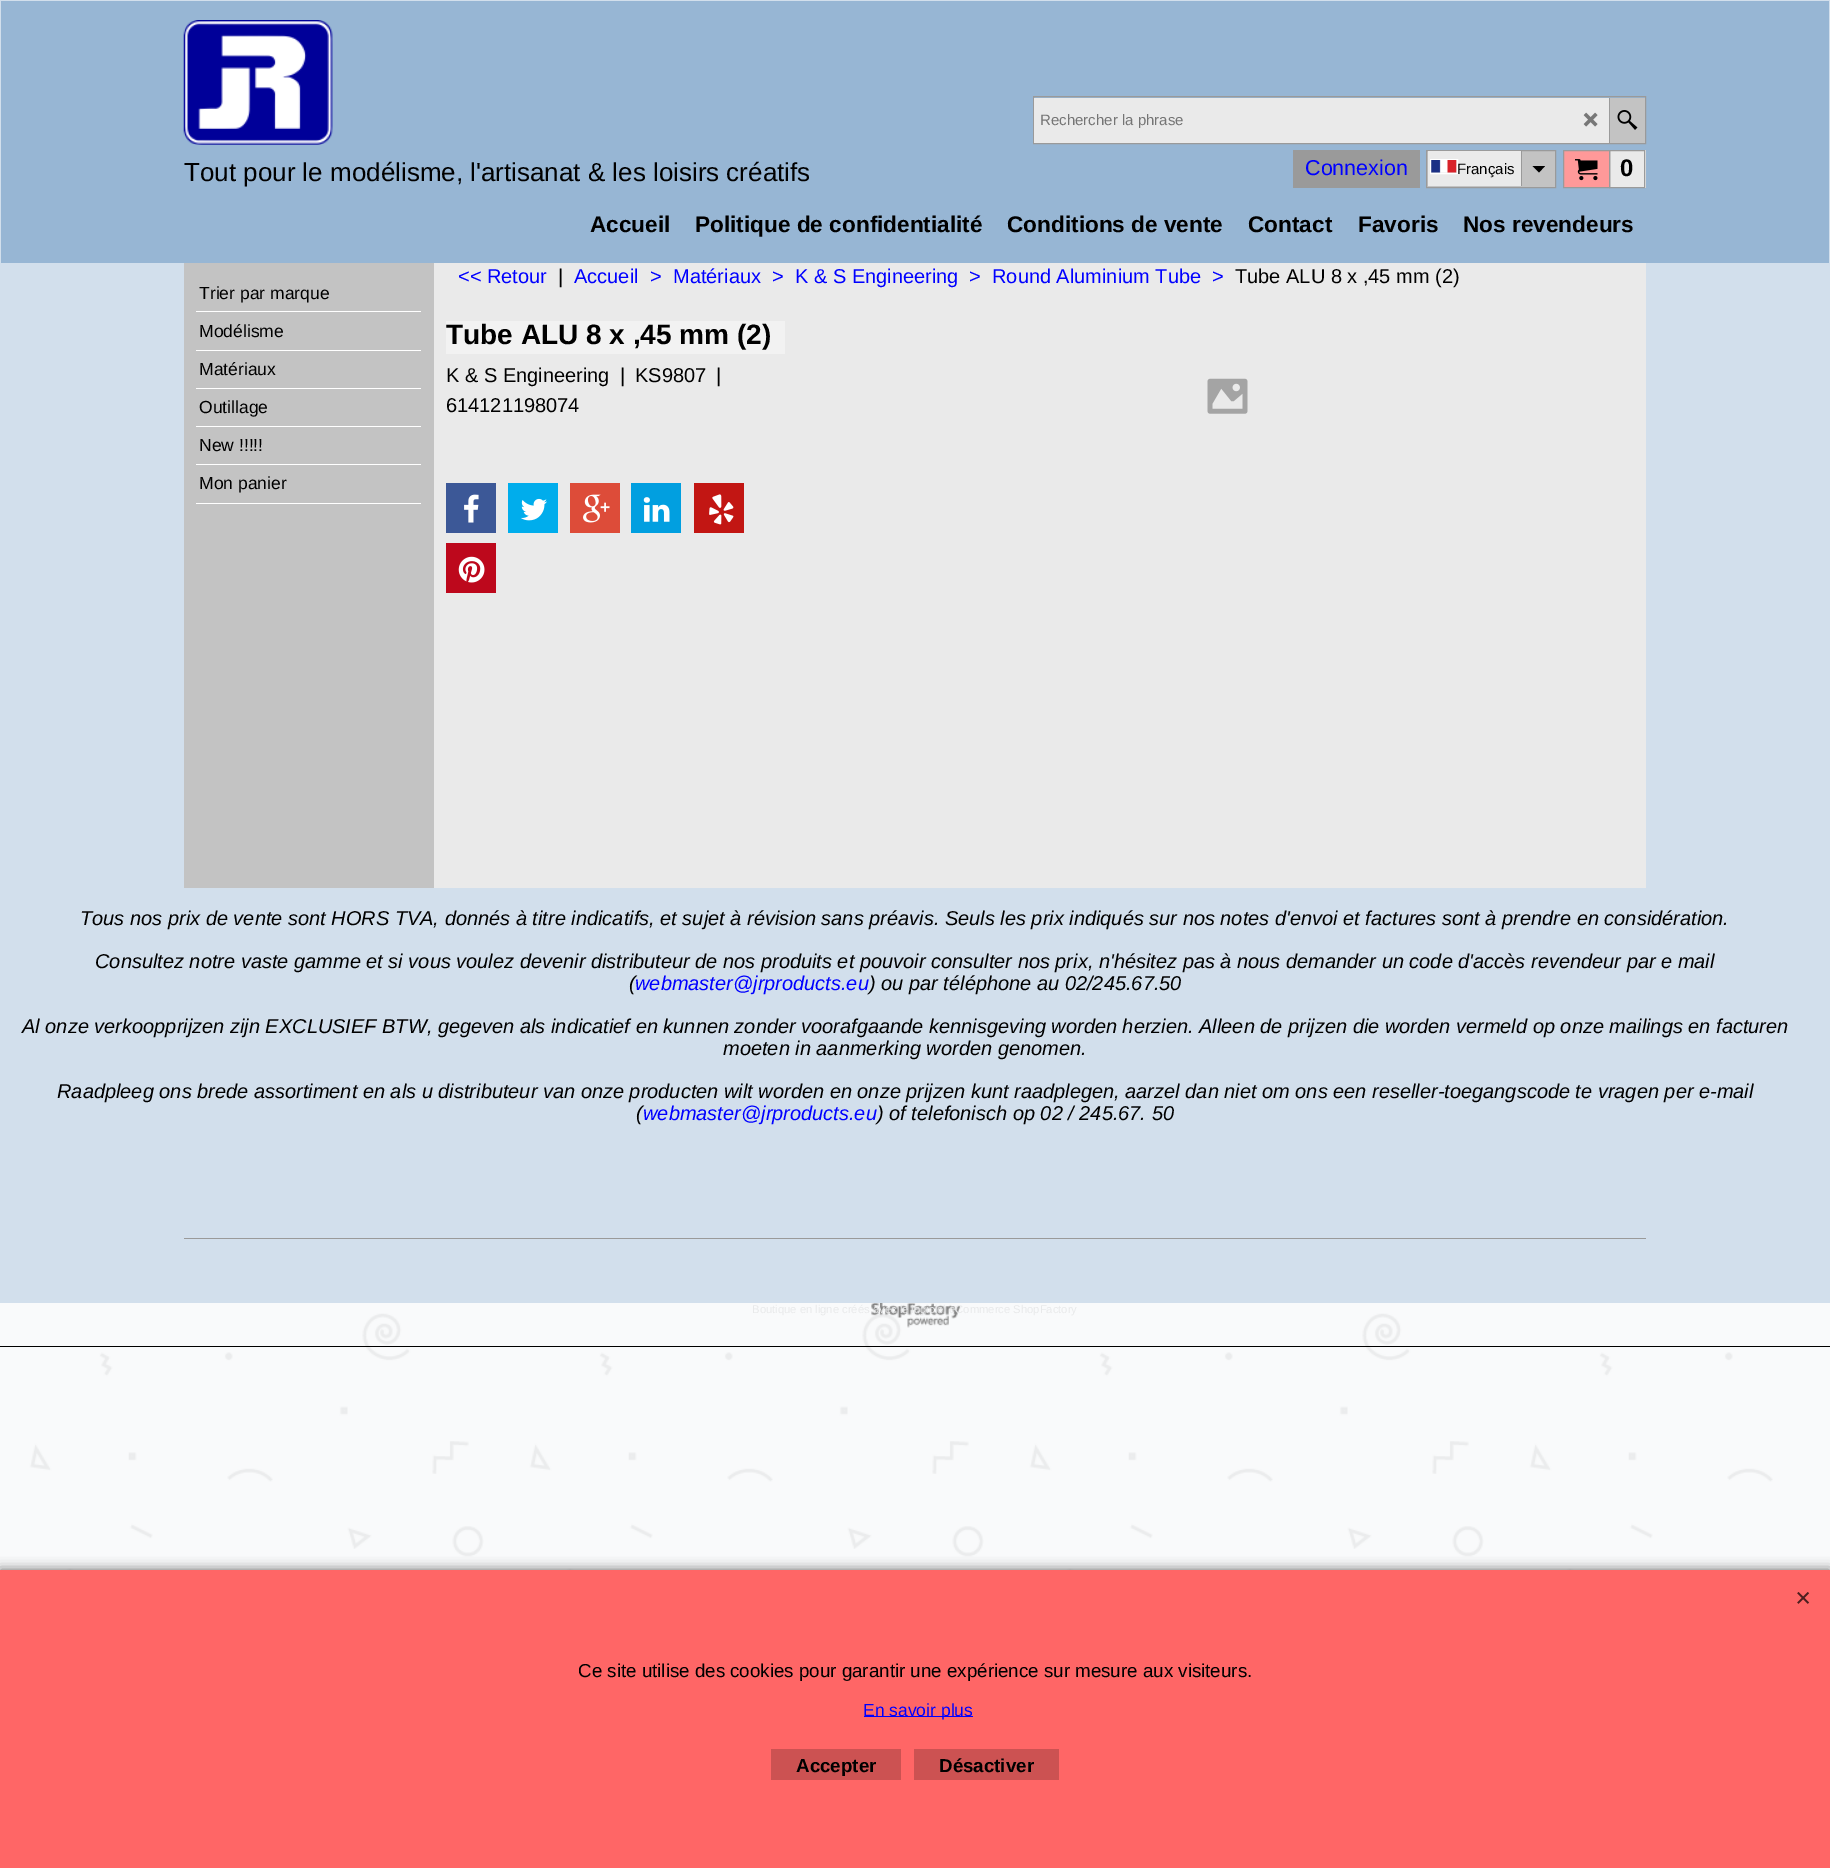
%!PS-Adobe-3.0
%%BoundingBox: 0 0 1830 1868
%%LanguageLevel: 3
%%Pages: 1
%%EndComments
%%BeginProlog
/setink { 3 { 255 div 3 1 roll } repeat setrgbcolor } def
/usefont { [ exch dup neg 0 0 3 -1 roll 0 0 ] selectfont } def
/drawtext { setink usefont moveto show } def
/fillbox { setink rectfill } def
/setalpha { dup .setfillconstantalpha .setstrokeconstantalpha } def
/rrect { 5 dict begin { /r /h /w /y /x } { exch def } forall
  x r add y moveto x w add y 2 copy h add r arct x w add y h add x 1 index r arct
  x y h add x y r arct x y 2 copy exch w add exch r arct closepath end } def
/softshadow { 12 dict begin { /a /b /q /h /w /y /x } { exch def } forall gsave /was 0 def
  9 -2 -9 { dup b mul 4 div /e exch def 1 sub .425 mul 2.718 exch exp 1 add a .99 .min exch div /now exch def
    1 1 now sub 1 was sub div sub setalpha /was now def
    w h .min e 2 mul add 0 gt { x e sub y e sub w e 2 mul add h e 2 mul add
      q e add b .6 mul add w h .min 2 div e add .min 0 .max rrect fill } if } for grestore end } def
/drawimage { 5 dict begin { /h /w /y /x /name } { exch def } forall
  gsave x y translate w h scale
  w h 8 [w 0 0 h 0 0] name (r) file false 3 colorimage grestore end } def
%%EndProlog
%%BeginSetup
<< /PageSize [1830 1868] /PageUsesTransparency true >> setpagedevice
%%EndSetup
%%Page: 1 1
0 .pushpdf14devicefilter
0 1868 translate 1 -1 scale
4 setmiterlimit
0 0 1830 1868 255 255 255 fillbox
(assets/img1.rgb) 0 1303 1830 267 drawimage
0 0 1830 1303 210 223 236 fillbox
1 1 1828 262 151 182 212 fillbox
(assets/img2.rgb) 183 20 150 125 drawimage
(Tout pour le modélisme, l'artisanat & les loisirs créatifs) 184 181 /LiberationSans-Regular 26 0 0 0 drawtext
154 154 154 setink
1033.5 96.5 612 47 rectstroke
1034 98 575 45 234 234 234 fillbox
(Rechercher la phrase) 1040 125 /LiberationSans-Regular 15 117 117 117 drawtext
(assets/img3.rgb) 1583 112 15 15 drawimage
1610 98 35 45 195 195 195 fillbox
1609 98 1 45 154 154 154 fillbox
(assets/img4.rgb) 1617 110 21 20 drawimage
1293 150 127 38 154 154 154 fillbox
(Connexion) 1305 175 /LiberationSans-Regular 21.5 0 0 255 drawtext
195 195 195 setink
1426.5 150.5 moveto 1555.5 150.5 lineto 1555.5 187.5 lineto 1426.5 187.5 lineto closepath gsave fill grestore
154 154 154 setink
stroke
1428 151 93 35 234 234 234 fillbox
255 255 255 setink
1430.5 159.5 27 14 rectstroke
(assets/img5.rgb) 1431 160 26 13 drawimage
(Français) 1457 174 /LiberationSans-Regular 15 0 0 0 drawtext
1521 151 1 35 154 154 154 fillbox
0 0 0 setink
1532.5 166 moveto 1539 172.5 lineto 1545 166 lineto closepath fill
1610 150 36 38 234 234 234 fillbox
255 153 153 setink
1563.5 150.5 moveto 1609.5 150.5 lineto 1609.5 187.5 lineto 1563.5 187.5 lineto closepath gsave fill grestore
154 154 154 setink
stroke
(assets/img6.rgb) 1575 159 23 22 drawimage
1609.5 150.5 35 37 rectstroke
(0) 1620 176 /LiberationSans-Bold 24 0 0 0 drawtext
(Accueil) 590 232 /LiberationSans-Bold 22.6 0 0 0 drawtext
(Politique de confidentialité) 695 232 /LiberationSans-Bold 22.6 0 0 0 drawtext
(Conditions de vente) 1007 232 /LiberationSans-Bold 22.6 0 0 0 drawtext
(Contact) 1248 232 /LiberationSans-Bold 22.6 0 0 0 drawtext
(Favoris) 1358 232 /LiberationSans-Bold 22.6 0 0 0 drawtext
(Nos revendeurs) 1463 232 /LiberationSans-Bold 22.6 0 0 0 drawtext
184 263 250 625 195 195 195 fillbox
196 311 225 1 255 255 255 fillbox
(Trier par marque) 199 299 /LiberationSans-Regular 17.5 0 0 0 drawtext
196 350 225 1 255 255 255 fillbox
(Modélisme) 199 337 /LiberationSans-Regular 17.5 0 0 0 drawtext
196 388 225 1 255 255 255 fillbox
(Matériaux) 199 375 /LiberationSans-Regular 17.5 0 0 0 drawtext
196 426 225 1 255 255 255 fillbox
(Outillage) 199 413 /LiberationSans-Regular 17.5 0 0 0 drawtext
196 464 225 1 255 255 255 fillbox
(New !!!!!) 199 451 /LiberationSans-Regular 17.5 0 0 0 drawtext
196 503 225 1 255 255 255 fillbox
(Mon panier) 199 489 /LiberationSans-Regular 17.5 0 0 0 drawtext
434 263 1212 625 234 234 234 fillbox
(<< Retour) 458 283 /LiberationSans-Regular 20 0 0 255 drawtext
(|) 558 283 /LiberationSans-Regular 20 0 0 0 drawtext
(Accueil) 574 283 /LiberationSans-Regular 20 0 0 255 drawtext
(>) 650 283 /LiberationSans-Regular 20 0 0 255 drawtext
(Matériaux) 673 283 /LiberationSans-Regular 20 0 0 255 drawtext
(>) 772 283 /LiberationSans-Regular 20 0 0 255 drawtext
(K & S Engineering) 795 283 /LiberationSans-Regular 20 0 0 255 drawtext
(>) 969 283 /LiberationSans-Regular 20 0 0 255 drawtext
(Round Aluminium Tube) 992 283 /LiberationSans-Regular 20 0 0 255 drawtext
(>) 1212 283 /LiberationSans-Regular 20 0 0 255 drawtext
(Tube ALU 8 x ,45 mm \(2\)) 1235 283 /LiberationSans-Regular 20 0 0 0 drawtext
446 321 339 33 242 242 242 fillbox
(Tube ALU 8 x ,45 mm \(2\)) 446 344 /LiberationSans-Bold 28 0 0 0 drawtext
(K & S Engineering) 446 382 /LiberationSans-Regular 20 0 0 0 drawtext
(|) 620 382 /LiberationSans-Regular 20 0 0 0 drawtext
(KS9807) 635 382 /LiberationSans-Regular 20 0 0 0 drawtext
(|) 716 382 /LiberationSans-Regular 20 0 0 0 drawtext
(614121198074) 446 412 /LiberationSans-Regular 20 0 0 0 drawtext
446 483 50 50 60 88 151 fillbox
(assets/img7.rgb) 464 494 15 29 drawimage
508 483 50 50 0 173 236 fillbox
(assets/img8.rgb) 521 498 26 23 drawimage
570 483 50 50 221 76 57 fillbox
(assets/img9.rgb) 583 494 27 29 drawimage
631 483 50 50 1 159 224 fillbox
(assets/img10.rgb) 643 497 27 25 drawimage
694 483 50 50 194 22 19 fillbox
(assets/img11.rgb) 709 494 25 31 drawimage
446 543 50 50 189 8 28 fillbox
(assets/img12.rgb) 458 556 27 27 drawimage
(assets/img13.rgb) 1207 378 41 36 drawimage
(Tous nos prix de vente sont HORS TVA, donnés à titre indicatifs, et sujet à révision sans préavis. Seuls les prix indiqués sur nos notes d'envoi et factures sont à prendre en considération.) 80 925 /LiberationSans-Italic 20 0 0 0 drawtext
(Consultez notre vaste gamme et si vous voulez devenir distributeur de nos produits et pouvoir consulter nos prix, n'hésitez pas à nous demander un code d'accès revendeur par e mail) 95 968 /LiberationSans-Italic 20 0 0 0 drawtext
(\() 629 990 /LiberationSans-Italic 20 0 0 0 drawtext
(webmaster@jrproducts.eu) 635 990 /LiberationSans-Italic 20 0 0 255 drawtext
(\) ou par téléphone au 02/245.67.50) 869 990 /LiberationSans-Italic 20 0 0 0 drawtext
(Al onze verkoopprijzen zijn EXCLUSIEF BTW, gegeven als indicatief en kunnen zonder voorafgaande kennisgeving worden herzien. Alleen de prijzen die worden vermeld op onze mailings en facturen) 22 1033 /LiberationSans-Italic 20 0 0 0 drawtext
(moeten in aanmerking worden genomen.) 723 1055 /LiberationSans-Italic 20 0 0 0 drawtext
(Raadpleeg ons brede assortiment en als u distributeur van onze producten wilt worden en onze prijzen kunt raadplegen, aarzel dan niet om ons een reseller-toegangscode te vragen per e-mail) 57 1098 /LiberationSans-Italic 20 0 0 0 drawtext
(\() 636 1120 /LiberationSans-Italic 20 0 0 0 drawtext
(webmaster@jrproducts.eu) 643 1120 /LiberationSans-Italic 20 0 0 255 drawtext
(\) of telefonisch op 02 / 245.67. 50) 877 1120 /LiberationSans-Italic 20 0 0 0 drawtext
184 1238 1462 1 154 154 154 fillbox
(assets/img14.rgb) 871 1303 90 25 drawimage
(Boutique en ligne créés avec le logiciel eCommerce ShopFactory) 752 1313 /LiberationSans-Regular 11.25 232 233 234 drawtext
0 1346 1830 1 0 0 0 fillbox
102 102 102 setink
0 1570 1830 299 0 6 1 softshadow
0 1570 1830 298 255 102 102 fillbox
(assets/img15.rgb) 1797 1592 13 12 drawimage
(Ce site utilise des cookies pour garantir une expérience sur mesure aux visiteurs.) 578 1677 /LiberationSans-Regular 18.75 0 0 0 drawtext
864 1716 109 1 0 0 255 fillbox
(En savoir plus) 863 1716 /LiberationSans-Regular 17.5 0 0 255 drawtext
771 1749 130 31 204 82 82 fillbox
(Accepter) 796 1772 /LiberationSans-Bold 18.75 0 0 0 drawtext
914 1749 145 31 204 82 82 fillbox
(Désactiver) 939 1772 /LiberationSans-Bold 18.75 0 0 0 drawtext
.poppdf14devicefilter showpage
%%EOF
